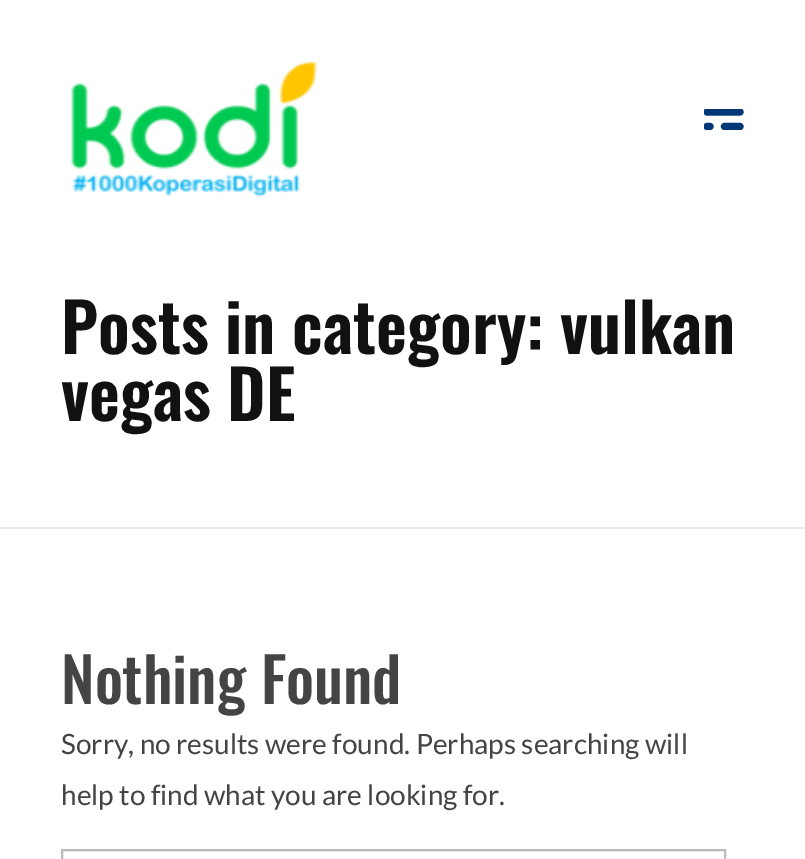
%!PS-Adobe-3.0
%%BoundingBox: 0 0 805 859
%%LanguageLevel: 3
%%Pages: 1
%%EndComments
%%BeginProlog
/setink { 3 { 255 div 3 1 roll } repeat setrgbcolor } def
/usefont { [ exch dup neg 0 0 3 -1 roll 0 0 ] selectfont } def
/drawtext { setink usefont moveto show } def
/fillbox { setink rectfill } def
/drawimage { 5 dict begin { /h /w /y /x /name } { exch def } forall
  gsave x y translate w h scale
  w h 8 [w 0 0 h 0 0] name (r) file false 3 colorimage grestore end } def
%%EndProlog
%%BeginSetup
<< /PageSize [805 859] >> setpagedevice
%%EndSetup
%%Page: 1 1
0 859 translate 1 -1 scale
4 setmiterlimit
0 0 805 859 255 255 255 fillbox
(assets/img1.rgb) 71 61 247 136 drawimage
gsave
704 109 40 21 rectclip
0 55 119 setink
7.2 setlinewidth
1 setlinecap
707 112 moveto 740 112 lineto 724.5 126.5 moveto 740 126.5 lineto 707 126.5 moveto 710 126.5 lineto stroke
grestore
0 527 805 2 234 234 234 fillbox
(Posts in category: vulkan) 61 354 /Oswald-SemiBold 67.25 17 17 17 drawtext
(vegas DE) 61 421 /Oswald-SemiBold 67.25 17 17 17 drawtext
(Nothing Found) 61 704 /Oswald-Medium 61.5 68 68 68 drawtext
(Sorry, no results were found. Perhaps searching will) 61 754 /Lato-Regular 28 68 68 68 drawtext
(help to find what you are looking for.) 61 805 /Lato-Regular 28 68 68 68 drawtext
187 187 187 setink
2 setlinewidth
62 850 663 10 rectstroke
showpage
%%EOF
